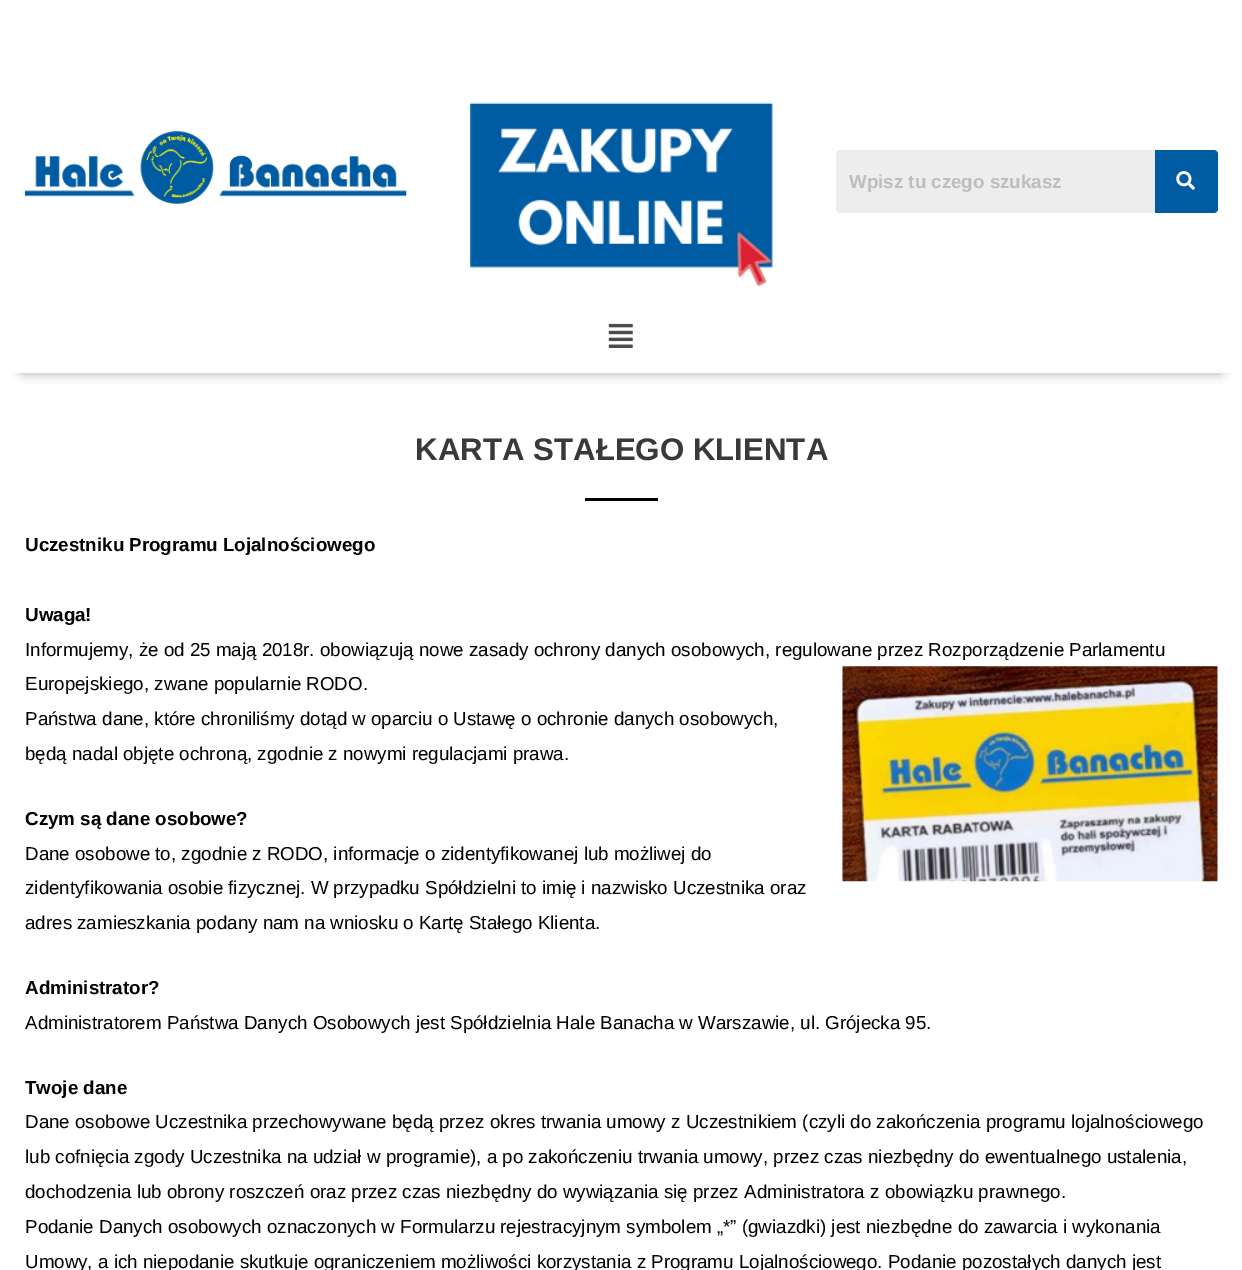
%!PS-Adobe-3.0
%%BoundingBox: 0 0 1242 1270
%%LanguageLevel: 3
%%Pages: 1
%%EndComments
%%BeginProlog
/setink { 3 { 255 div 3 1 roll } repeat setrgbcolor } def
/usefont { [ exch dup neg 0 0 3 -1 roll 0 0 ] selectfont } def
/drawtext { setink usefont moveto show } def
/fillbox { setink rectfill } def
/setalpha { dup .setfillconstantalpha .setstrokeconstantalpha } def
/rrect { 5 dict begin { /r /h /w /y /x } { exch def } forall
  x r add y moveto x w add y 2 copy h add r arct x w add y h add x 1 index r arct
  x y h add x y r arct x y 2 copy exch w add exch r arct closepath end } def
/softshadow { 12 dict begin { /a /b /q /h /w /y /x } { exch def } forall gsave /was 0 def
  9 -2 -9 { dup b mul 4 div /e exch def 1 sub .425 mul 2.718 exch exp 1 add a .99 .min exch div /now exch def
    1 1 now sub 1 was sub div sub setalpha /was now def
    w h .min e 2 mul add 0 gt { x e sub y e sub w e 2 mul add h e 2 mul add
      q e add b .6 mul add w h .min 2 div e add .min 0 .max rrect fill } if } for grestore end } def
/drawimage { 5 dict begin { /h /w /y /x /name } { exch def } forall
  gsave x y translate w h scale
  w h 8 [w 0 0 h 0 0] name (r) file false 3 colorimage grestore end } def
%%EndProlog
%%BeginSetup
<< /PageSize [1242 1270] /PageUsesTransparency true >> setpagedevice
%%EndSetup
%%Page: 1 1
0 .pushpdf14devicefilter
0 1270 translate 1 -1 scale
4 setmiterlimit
0 0 1242 1270 255 255 255 fillbox
(assets/img1.rgb) 25 131 382 73 drawimage
(assets/img2.rgb) 469 102 304 185 drawimage
237 237 237 setink
840 150 moveto 1155 150 lineto 1155 213 lineto 840 213 lineto 838 213 836 211 836 209 curveto 836 154 lineto 836 152 838 150 840 150 curveto closepath fill
(Wpisz tu czego szukasz) 849 188 /LiberationSans-Bold 18.75 189 189 189 drawtext
0 92 162 setink
1155 150 moveto 1214 150 lineto 1216 150 1218 152 1218 154 curveto 1218 209 lineto 1218 211 1216 213 1214 213 curveto 1155 213 lineto closepath fill
(assets/img3.rgb) 1176 171 19 19 drawimage
gsave
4 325 moveto 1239 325 lineto 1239 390 lineto 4 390 lineto closepath 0 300 moveto 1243 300 lineto 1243 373 lineto 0 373 lineto closepath eoclip newpath
0 0 0 setink
23 344 1197 27 0 6 0.5 softshadow
grestore
(assets/img4.rgb) 608 323 25 25 drawimage
(KARTA STAŁEGO KLIENTA) 415 460 /LiberationSans-Bold 31.25 55 57 58 drawtext
585 498 73 3 0 0 0 fillbox
(Uczestniku Programu Lojalnościowego) 25 551 /LiberationSans-Bold 18.75 0 0 0 drawtext
(Uwaga!) 25 621 /LiberationSans-Bold 18.75 0 0 0 drawtext
(Informujemy, że od 25 mają 2018r. obowiązują nowe zasady ochrony danych osobowych, regulowane przez Rozporządzenie Parlamentu) 25 656 /LiberationSans-Regular 18.75 0 0 0 drawtext
(Europejskiego, zwane popularnie RODO.) 25 690 /LiberationSans-Regular 18.75 0 0 0 drawtext
(assets/img5.rgb) 842 666 376 216 drawimage
(Państwa dane, które chroniliśmy dotąd w oparciu o Ustawę o ochronie danych osobowych,) 25 725 /LiberationSans-Regular 18.75 0 0 0 drawtext
(będą nadal objęte ochroną, zgodnie z nowymi regulacjami prawa.) 25 760 /LiberationSans-Regular 18.75 0 0 0 drawtext
(Czym są dane osobowe?) 25 825 /LiberationSans-Bold 18.75 0 0 0 drawtext
(Dane osobowe to, zgodnie z RODO, informacje o zidentyfikowanej lub możliwej do) 25 860 /LiberationSans-Regular 18.75 0 0 0 drawtext
(zidentyfikowania osobie fizycznej. W przypadku Spółdzielni to imię i nazwisko Uczestnika oraz) 25 894 /LiberationSans-Regular 18.75 0 0 0 drawtext
(adres zamieszkania podany nam na wniosku o Kartę Stałego Klienta.) 25 929 /LiberationSans-Regular 18.75 0 0 0 drawtext
(Administrator?) 25 994 /LiberationSans-Bold 18.75 0 0 0 drawtext
(Administratorem Państwa Danych Osobowych jest Spółdzielnia Hale Banacha w Warszawie, ul. Grójecka 95.) 25 1029 /LiberationSans-Regular 18.75 0 0 0 drawtext
(Twoje dane) 25 1094 /LiberationSans-Bold 18.75 0 0 0 drawtext
(Dane osobowe Uczestnika przechowywane będą przez okres trwania umowy z Uczestnikiem \(czyli do zakończenia programu lojalnościowego) 25 1128 /LiberationSans-Regular 18.75 0 0 0 drawtext
(lub cofnięcia zgody Uczestnika na udział w programie\), a po zakończeniu trwania umowy, przez czas niezbędny do ewentualnego ustalenia,) 25 1163 /LiberationSans-Regular 18.75 0 0 0 drawtext
(dochodzenia lub obrony roszczeń oraz przez czas niezbędny do wywiązania się przez Administratora z obowiązku prawnego.) 25 1198 /LiberationSans-Regular 18.75 0 0 0 drawtext
(Podanie Danych osobowych oznaczonych w Formularzu rejestracyjnym symbolem „*” \(gwiazdki\) jest niezbędne do zawarcia i wykonania) 25 1233 /LiberationSans-Regular 18.75 0 0 0 drawtext
(Umowy, a ich niepodanie skutkuje ograniczeniem możliwości korzystania z Programu Lojalnościowego. Podanie pozostałych danych jest) 25 1268 /LiberationSans-Regular 18.75 0 0 0 drawtext
.poppdf14devicefilter showpage
%%EOF
